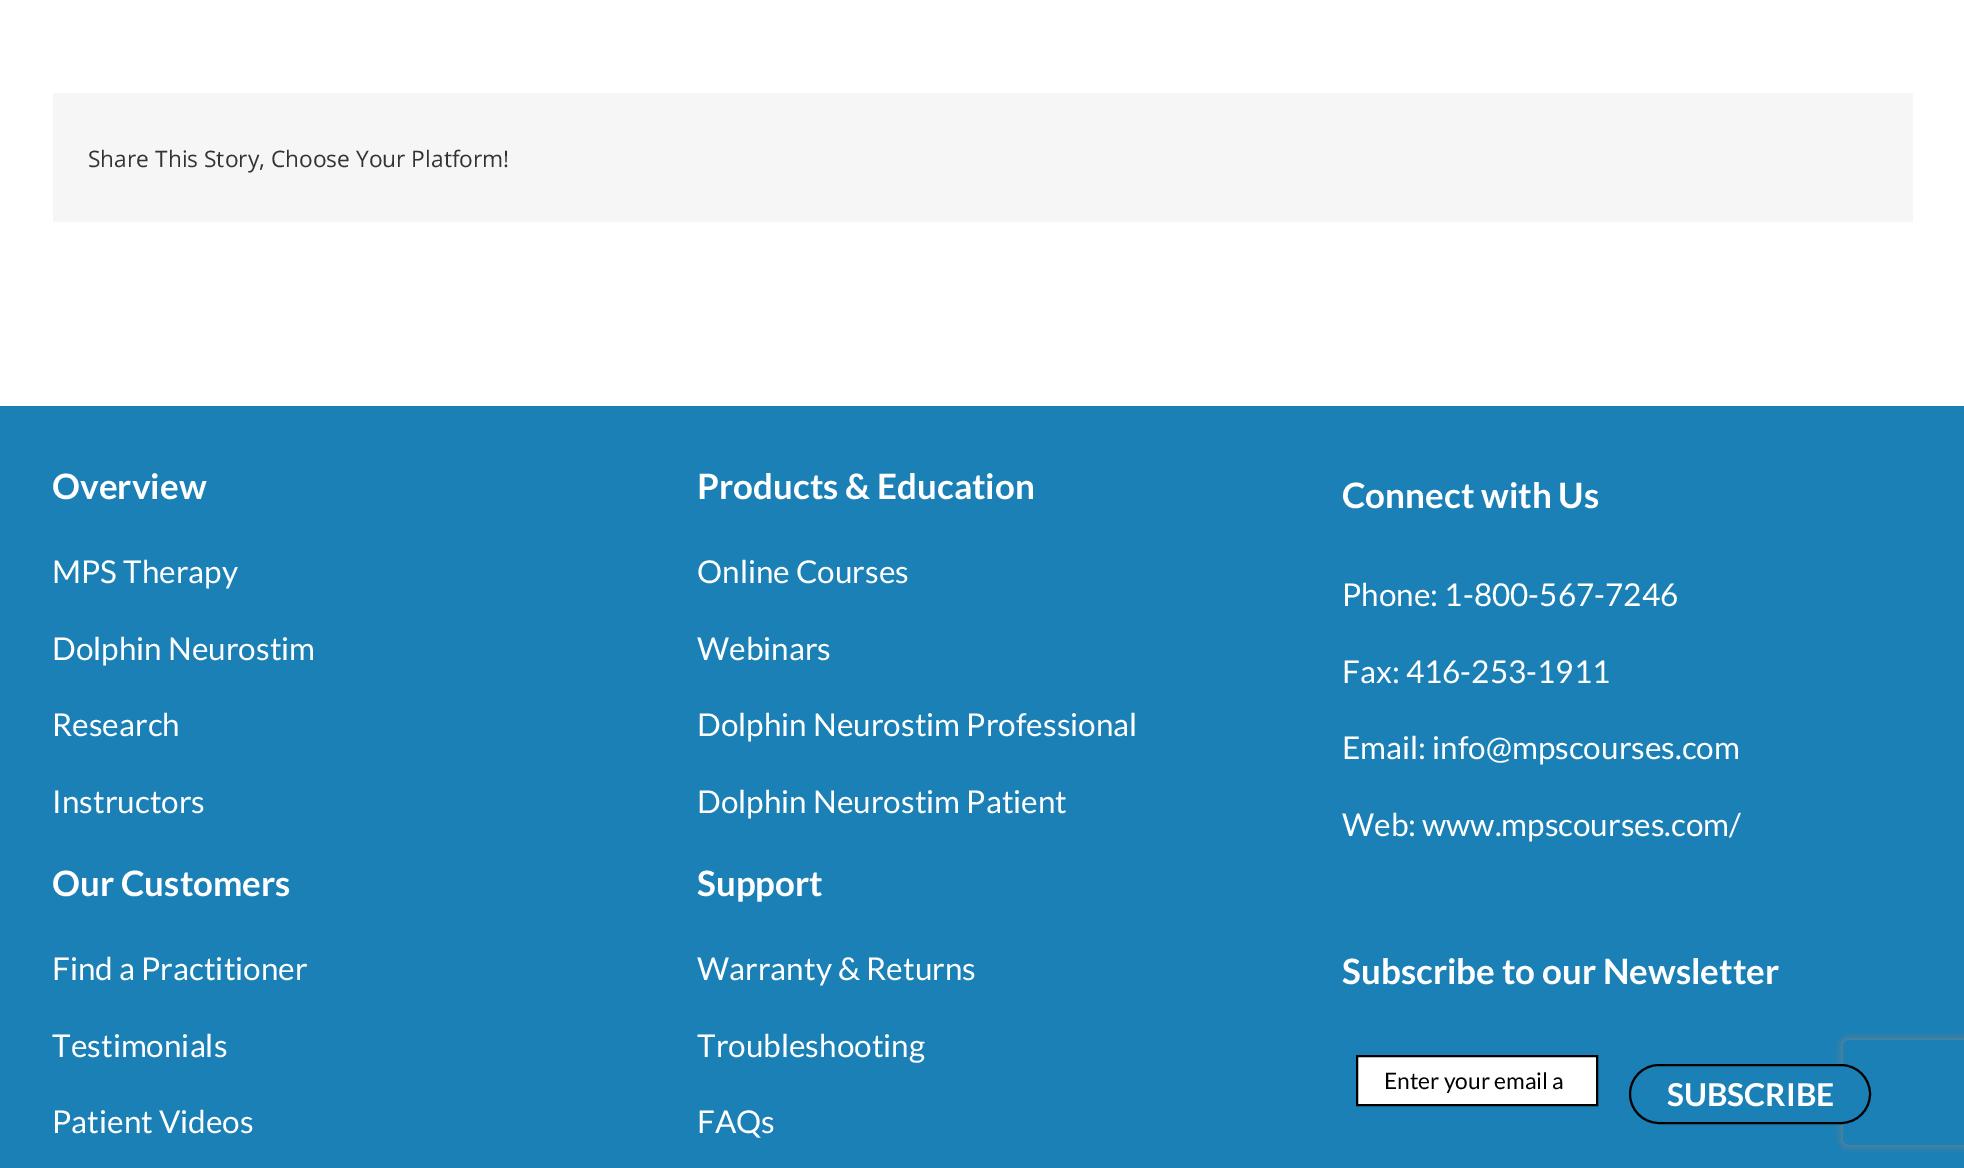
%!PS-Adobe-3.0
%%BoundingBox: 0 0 1964 1168
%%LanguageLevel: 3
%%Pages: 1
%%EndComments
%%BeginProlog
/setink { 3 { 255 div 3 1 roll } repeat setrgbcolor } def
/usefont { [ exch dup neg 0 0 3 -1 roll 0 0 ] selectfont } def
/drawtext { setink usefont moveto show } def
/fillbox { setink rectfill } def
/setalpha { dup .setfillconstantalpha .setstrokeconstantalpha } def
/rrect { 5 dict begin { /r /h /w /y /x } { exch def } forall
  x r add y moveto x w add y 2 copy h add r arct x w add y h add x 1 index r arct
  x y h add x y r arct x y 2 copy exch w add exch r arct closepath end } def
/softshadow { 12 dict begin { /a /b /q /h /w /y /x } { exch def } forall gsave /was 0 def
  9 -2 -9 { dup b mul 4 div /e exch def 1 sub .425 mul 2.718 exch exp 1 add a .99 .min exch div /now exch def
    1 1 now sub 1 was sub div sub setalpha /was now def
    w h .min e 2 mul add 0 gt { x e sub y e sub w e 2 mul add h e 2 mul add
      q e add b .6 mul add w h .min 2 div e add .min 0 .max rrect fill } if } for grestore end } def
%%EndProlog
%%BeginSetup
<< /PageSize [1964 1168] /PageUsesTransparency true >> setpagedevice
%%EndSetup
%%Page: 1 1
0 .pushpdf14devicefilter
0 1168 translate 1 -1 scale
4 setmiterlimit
0 0 1964 1168 255 255 255 fillbox
53 93 1860 129 246 246 246 fillbox
(Share This Story, Choose Your Platform!) 88 167 /OpenSans-Regular 22.75 51 51 51 drawtext
0 406 1964 762 26 128 182 fillbox
(Overview) 52 499 /Lato-Bold 35 255 255 255 drawtext
(MPS Therapy) 52 583 /Lato-Regular 31.5 255 255 255 drawtext
(Dolphin Neurostim) 52 660 /Lato-Regular 31.5 255 255 255 drawtext
(Research) 52 736 /Lato-Regular 31.5 255 255 255 drawtext
(Instructors) 52 813 /Lato-Regular 31.5 255 255 255 drawtext
(Our Customers) 52 896 /Lato-Bold 35 255 255 255 drawtext
(Find a Practitioner) 52 980 /Lato-Regular 31.5 255 255 255 drawtext
(Testimonials) 52 1057 /Lato-Regular 31.5 255 255 255 drawtext
(Patient Videos) 52 1133 /Lato-Regular 31.5 255 255 255 drawtext
(Products & Education) 697 499 /Lato-Bold 35 255 255 255 drawtext
(Online Courses) 697 583 /Lato-Regular 31.5 255 255 255 drawtext
(Webinars) 697 660 /Lato-Regular 31.5 255 255 255 drawtext
(Dolphin Neurostim Professional) 697 736 /Lato-Regular 31.5 255 255 255 drawtext
(Dolphin Neurostim Patient) 697 813 /Lato-Regular 31.5 255 255 255 drawtext
(Support) 697 896 /Lato-Bold 35 255 255 255 drawtext
(Warranty & Returns) 697 980 /Lato-Regular 31.5 255 255 255 drawtext
(Troubleshooting) 697 1057 /Lato-Regular 31.5 255 255 255 drawtext
(FAQs) 697 1133 /Lato-Regular 31.5 255 255 255 drawtext
(Connect with Us) 1342 508 /Lato-Bold 35 255 255 255 drawtext
(Phone: 1-800-567-7246) 1342 606 /Lato-Regular 31.5 255 255 255 drawtext
(Fax: 416-253-1911) 1342 683 /Lato-Regular 31.5 255 255 255 drawtext
(Email: info@mpscourses.com) 1342 759 /Lato-Regular 31.5 255 255 255 drawtext
(Web: www.mpscourses.com/) 1342 836 /Lato-Regular 31.5 255 255 255 drawtext
(Subscribe to our Newsletter) 1342 984 /Lato-Bold 35 255 255 255 drawtext
1357 1056 moveto 1597 1056 lineto 1597 1105 lineto 1357 1105 lineto closepath gsave fill grestore
0 0 0 setink
2 setlinewidth
stroke
(Enter your email a) 1384 1089 /Lato-Regular 22.75 0 0 0 drawtext
gsave
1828 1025 moveto 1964 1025 lineto 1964 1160 lineto 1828 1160 lineto closepath 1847 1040 moveto 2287 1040 lineto 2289 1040 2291 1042 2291 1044 curveto 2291 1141 lineto 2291 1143 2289 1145 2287 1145 curveto 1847 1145 lineto 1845 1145 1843 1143 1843 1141 curveto 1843 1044 lineto 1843 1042 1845 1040 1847 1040 curveto closepath eoclip newpath
128 128 128 setink
1843 1040 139 105 4 4.5 1 softshadow
grestore
26 128 182 setink
1630 1065 240 58 29 rrect gsave fill grestore
0 0 0 setink
stroke
(SUBSCRIBE) 1667 1106 /Lato-Bold 31.5 255 255 255 drawtext
.poppdf14devicefilter showpage
%%EOF
